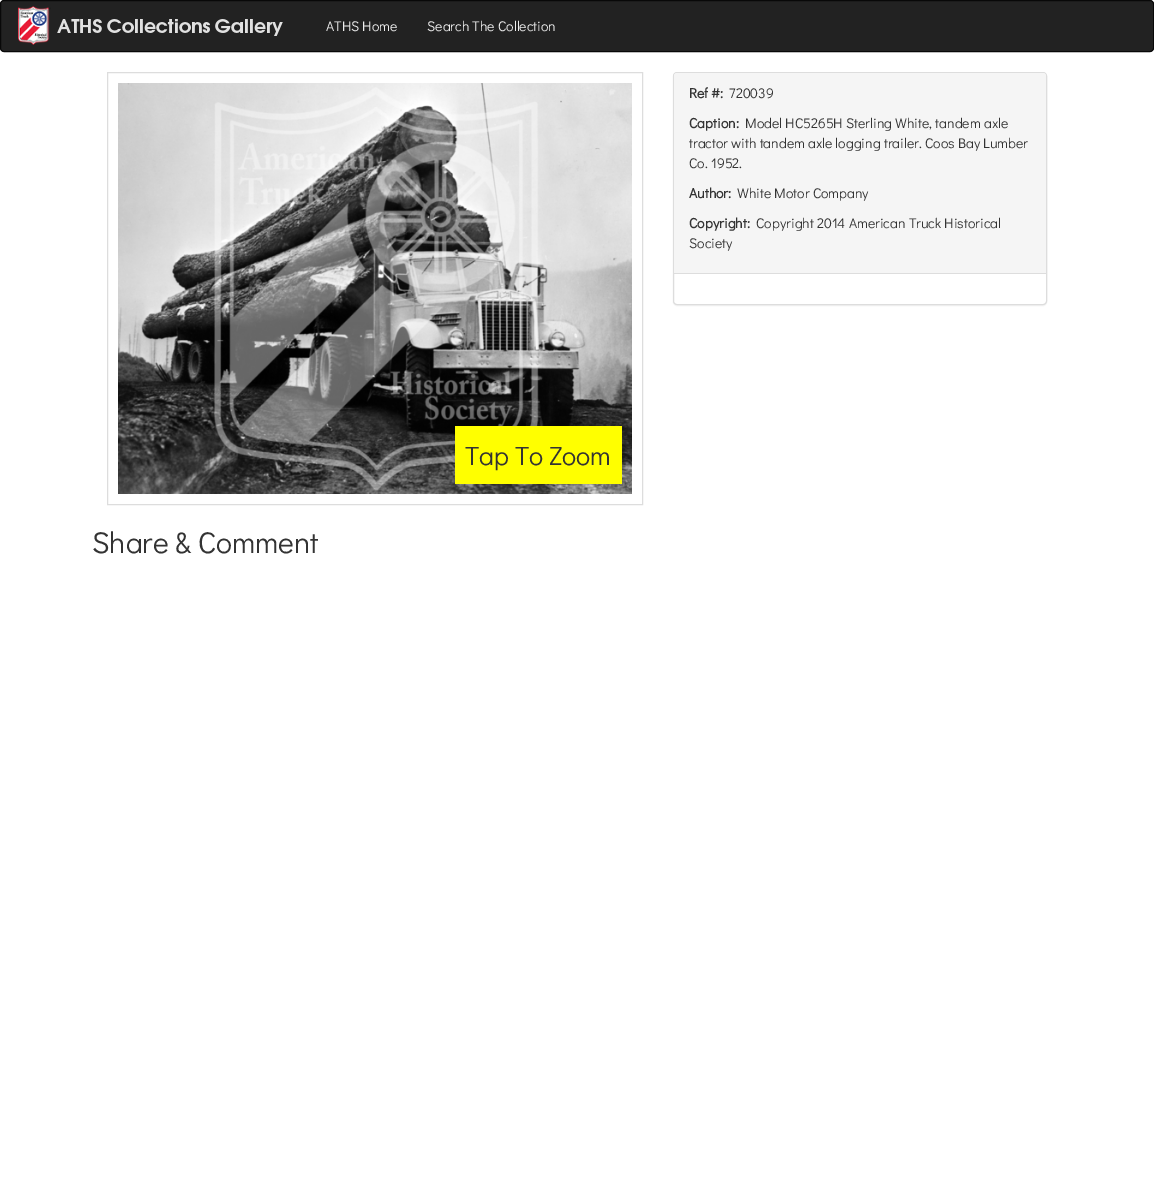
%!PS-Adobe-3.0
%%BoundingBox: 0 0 1154 1201
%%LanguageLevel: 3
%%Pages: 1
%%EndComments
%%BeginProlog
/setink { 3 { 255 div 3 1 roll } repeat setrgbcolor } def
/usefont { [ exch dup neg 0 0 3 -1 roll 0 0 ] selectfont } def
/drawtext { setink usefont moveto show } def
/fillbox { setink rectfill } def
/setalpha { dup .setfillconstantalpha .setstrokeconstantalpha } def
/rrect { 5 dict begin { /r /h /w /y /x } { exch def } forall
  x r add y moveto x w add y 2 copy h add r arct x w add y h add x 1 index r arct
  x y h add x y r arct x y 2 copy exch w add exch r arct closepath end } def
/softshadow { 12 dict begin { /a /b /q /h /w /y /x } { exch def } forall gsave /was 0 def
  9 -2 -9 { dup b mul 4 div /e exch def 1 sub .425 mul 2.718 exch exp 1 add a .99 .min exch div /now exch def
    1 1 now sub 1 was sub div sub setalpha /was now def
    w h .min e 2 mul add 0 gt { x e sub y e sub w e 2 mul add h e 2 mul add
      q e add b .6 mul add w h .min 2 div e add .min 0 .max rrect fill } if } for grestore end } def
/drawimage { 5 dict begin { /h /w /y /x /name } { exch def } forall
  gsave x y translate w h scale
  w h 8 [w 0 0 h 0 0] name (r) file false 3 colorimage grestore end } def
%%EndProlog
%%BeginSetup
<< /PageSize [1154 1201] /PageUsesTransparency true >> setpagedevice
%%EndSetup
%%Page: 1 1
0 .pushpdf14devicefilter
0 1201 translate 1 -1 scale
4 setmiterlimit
0 0 1154 1201 255 255 255 fillbox
34 34 34 setink
0.5 0.5 1153 51 3.5 rrect gsave fill grestore
8 8 8 setink
stroke
(assets/img1.rgb) 18 6 265 39 drawimage
(ATHS Home) 326 31 /DidactGothic-Regular 14 238 238 238 drawtext
(Search The Collection) 427 31 /DidactGothic-Regular 14 238 238 238 drawtext
0 0 0 setink
673 73 374 233 4 0.5 0.05 softshadow
255 255 255 setink
673.5 72.5 373 232 3.5 rrect gsave fill grestore
221 221 221 setink
stroke
245 245 245 setink
677 73 moveto 1043 73 lineto 1044.5 73 1046 74.5 1046 76 curveto 1046 274 lineto 674 274 lineto 674 76 lineto 674 74.5 675.5 73 677 73 curveto closepath fill
674 273 372 1 221 221 221 fillbox
(Ref #:) 689 98 /DidactGothic-Bold 14 51 51 51 drawtext
(720039) 729 98 /DidactGothic-Regular 14 51 51 51 drawtext
(Caption:) 689 128 /DidactGothic-Bold 14 51 51 51 drawtext
(Model HC5265H Sterling White, tandem axle) 745 128 /DidactGothic-Regular 14 51 51 51 drawtext
(tractor with tandem axle logging trailer. Coos Bay Lumber) 689 148 /DidactGothic-Regular 14 51 51 51 drawtext
(Co. 1952.) 689 168 /DidactGothic-Regular 14 51 51 51 drawtext
(Author:) 689 198 /DidactGothic-Bold 14 51 51 51 drawtext
(White Motor Company) 737 198 /DidactGothic-Regular 14 51 51 51 drawtext
(Copyright:) 689 228 /DidactGothic-Bold 14 51 51 51 drawtext
(Copyright 2014 American Truck Historical) 756 228 /DidactGothic-Regular 14 51 51 51 drawtext
(Society) 689 248 /DidactGothic-Regular 14 51 51 51 drawtext
221 221 221 setink
107.5 72.5 535 432 rectstroke
(assets/img2.rgb) 118 83 514 411 drawimage
455 426 167 58 255 255 0 fillbox
(Tap To Zoom) 465 465 /DidactGothic-Regular 26.5 51 51 51 drawtext
(Share & Comment) 92 553 /DidactGothic-Regular 30 51 51 51 drawtext
.poppdf14devicefilter showpage
%%EOF
